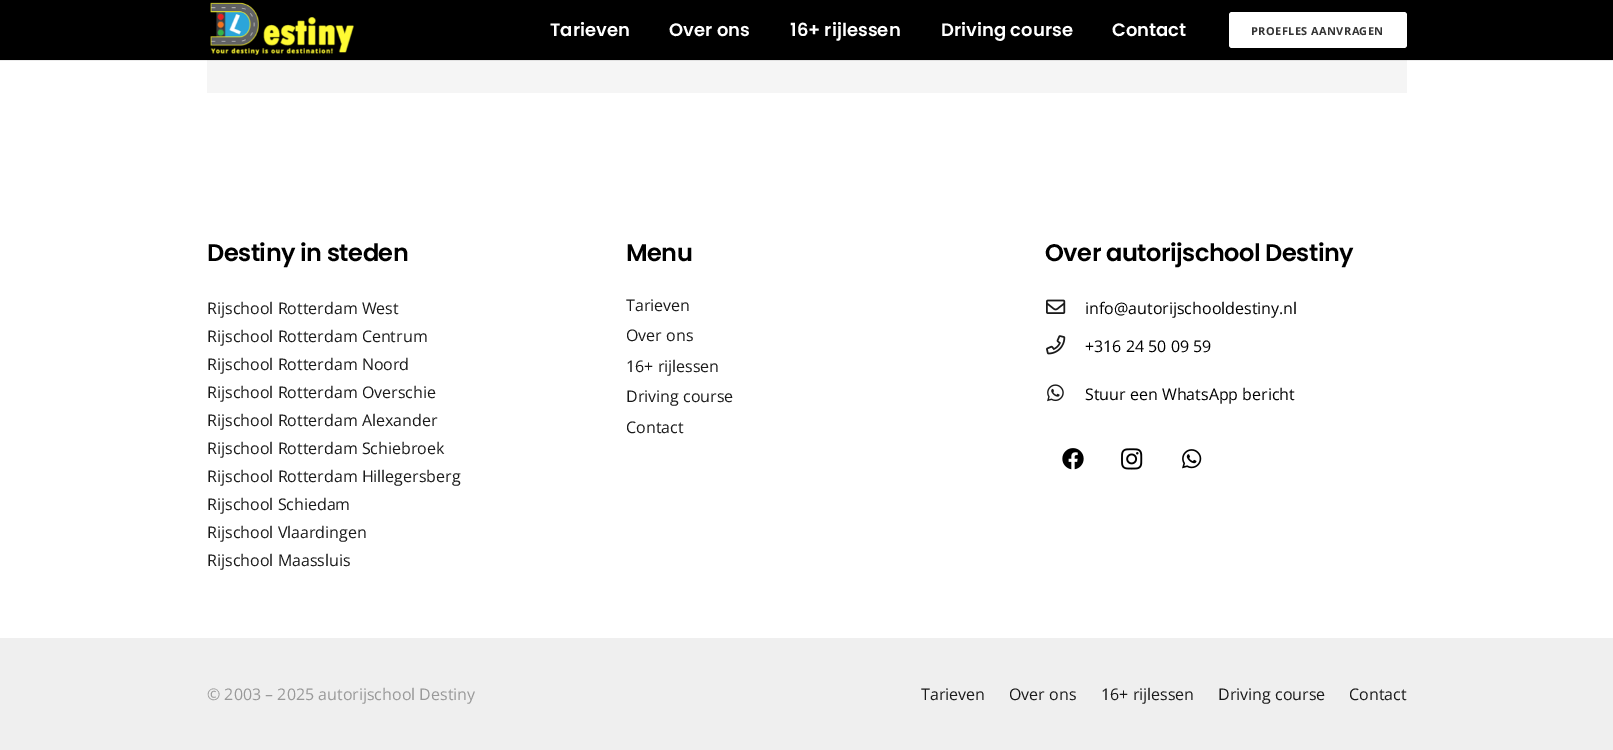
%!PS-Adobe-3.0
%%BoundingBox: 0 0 1613 750
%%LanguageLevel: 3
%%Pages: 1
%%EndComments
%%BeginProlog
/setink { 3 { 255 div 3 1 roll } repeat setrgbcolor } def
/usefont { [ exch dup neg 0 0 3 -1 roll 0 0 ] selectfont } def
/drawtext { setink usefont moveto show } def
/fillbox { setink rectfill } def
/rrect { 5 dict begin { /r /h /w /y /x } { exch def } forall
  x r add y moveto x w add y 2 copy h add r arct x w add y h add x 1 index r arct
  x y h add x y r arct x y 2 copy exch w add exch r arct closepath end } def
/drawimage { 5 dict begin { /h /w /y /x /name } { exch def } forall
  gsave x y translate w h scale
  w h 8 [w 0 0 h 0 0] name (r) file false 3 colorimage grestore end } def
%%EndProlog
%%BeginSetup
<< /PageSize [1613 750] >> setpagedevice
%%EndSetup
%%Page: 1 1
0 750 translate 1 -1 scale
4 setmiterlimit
0 0 1613 750 255 255 255 fillbox
0 60 1613 1 235 235 235 fillbox
0 0 1613 60 0 0 0 fillbox
(assets/img1.rgb) 210 2 144 53 drawimage
(Tarieven) 550 36 /Poppins-SemiBold 18 255 255 255 drawtext
(Over ons) 669 36 /Poppins-SemiBold 18 255 255 255 drawtext
(16+ rijlessen) 790 36 /Poppins-SemiBold 18 255 255 255 drawtext
(Driving course) 941 36 /Poppins-SemiBold 18 255 255 255 drawtext
(Contact) 1112 36 /Poppins-SemiBold 18 255 255 255 drawtext
1229 12 178 36 3 rrect fill
/OpenSans-Bold 11 usefont
51 51 51 setink
1251 35 moveto 0.4 0 (PROEFLES AANVRAGEN) ashow
207 61 1200 32 245 245 245 fillbox
207 60 1200 1 225 225 225 fillbox
/Poppins-SemiBold 24 usefont
0 0 0 setink
207 261 moveto -0.5 0 (Destiny in steden) ashow
(Rijschool Rotterdam West) 207 314 /OpenSans-Regular 16 26 26 26 drawtext
(Rijschool Rotterdam Centrum) 207 342 /OpenSans-Regular 16 26 26 26 drawtext
(Rijschool Rotterdam Noord) 207 370 /OpenSans-Regular 16 26 26 26 drawtext
(Rijschool Rotterdam Overschie) 207 398 /OpenSans-Regular 16 26 26 26 drawtext
(Rijschool Rotterdam Alexander) 207 426 /OpenSans-Regular 16 26 26 26 drawtext
(Rijschool Rotterdam Schiebroek) 207 454 /OpenSans-Regular 16 26 26 26 drawtext
(Rijschool Rotterdam Hillegersberg) 207 482 /OpenSans-Regular 16 26 26 26 drawtext
(Rijschool Schiedam) 207 510 /OpenSans-Regular 16 26 26 26 drawtext
(Rijschool Vlaardingen) 207 538 /OpenSans-Regular 16 26 26 26 drawtext
(Rijschool Maassluis) 207 566 /OpenSans-Regular 16 26 26 26 drawtext
/Poppins-SemiBold 24 usefont
0 0 0 setink
626 261 moveto -0.5 0 (Menu) ashow
(Tarieven) 626 311 /OpenSans-Regular 16 26 26 26 drawtext
(Over ons) 626 341 /OpenSans-Regular 16 26 26 26 drawtext
(16+ rijlessen) 626 372 /OpenSans-Regular 16 26 26 26 drawtext
(Driving course) 626 402 /OpenSans-Regular 16 26 26 26 drawtext
(Contact) 626 433 /OpenSans-Regular 16 26 26 26 drawtext
/Poppins-SemiBold 24 usefont
0 0 0 setink
1045 261 moveto -0.5 0 (Over autorijschool Destiny) ashow
(assets/img2.rgb) 1046 299 20 15 drawimage
(info@autorijschooldestiny.nl) 1085 314 /OpenSans-Regular 16 0 0 0 drawtext
(assets/img3.rgb) 1046 335 20 20 drawimage
(+316 24 50 09 59) 1085 352 /OpenSans-Regular 16 0 0 0 drawtext
(assets/img4.rgb) 1047 384 17 18 drawimage
(Stuur een WhatsApp bericht) 1085 400 /OpenSans-Regular 16 0 0 0 drawtext
(assets/img5.rgb) 1062 448 22 22 drawimage
(assets/img6.rgb) 1121 448 22 22 drawimage
(assets/img7.rgb) 1182 449 20 20 drawimage
0 638 1613 112 239 239 239 fillbox
(© 2003 – 2025 autorijschool Destiny) 207 700 /OpenSans-Regular 16 153 153 153 drawtext
(Tarieven) 921 700 /OpenSans-Regular 16 26 26 26 drawtext
(Over ons) 1009 700 /OpenSans-Regular 16 26 26 26 drawtext
(16+ rijlessen) 1101 700 /OpenSans-Regular 16 26 26 26 drawtext
(Driving course) 1218 700 /OpenSans-Regular 16 26 26 26 drawtext
(Contact) 1349 700 /OpenSans-Regular 16 26 26 26 drawtext
showpage
%%EOF
